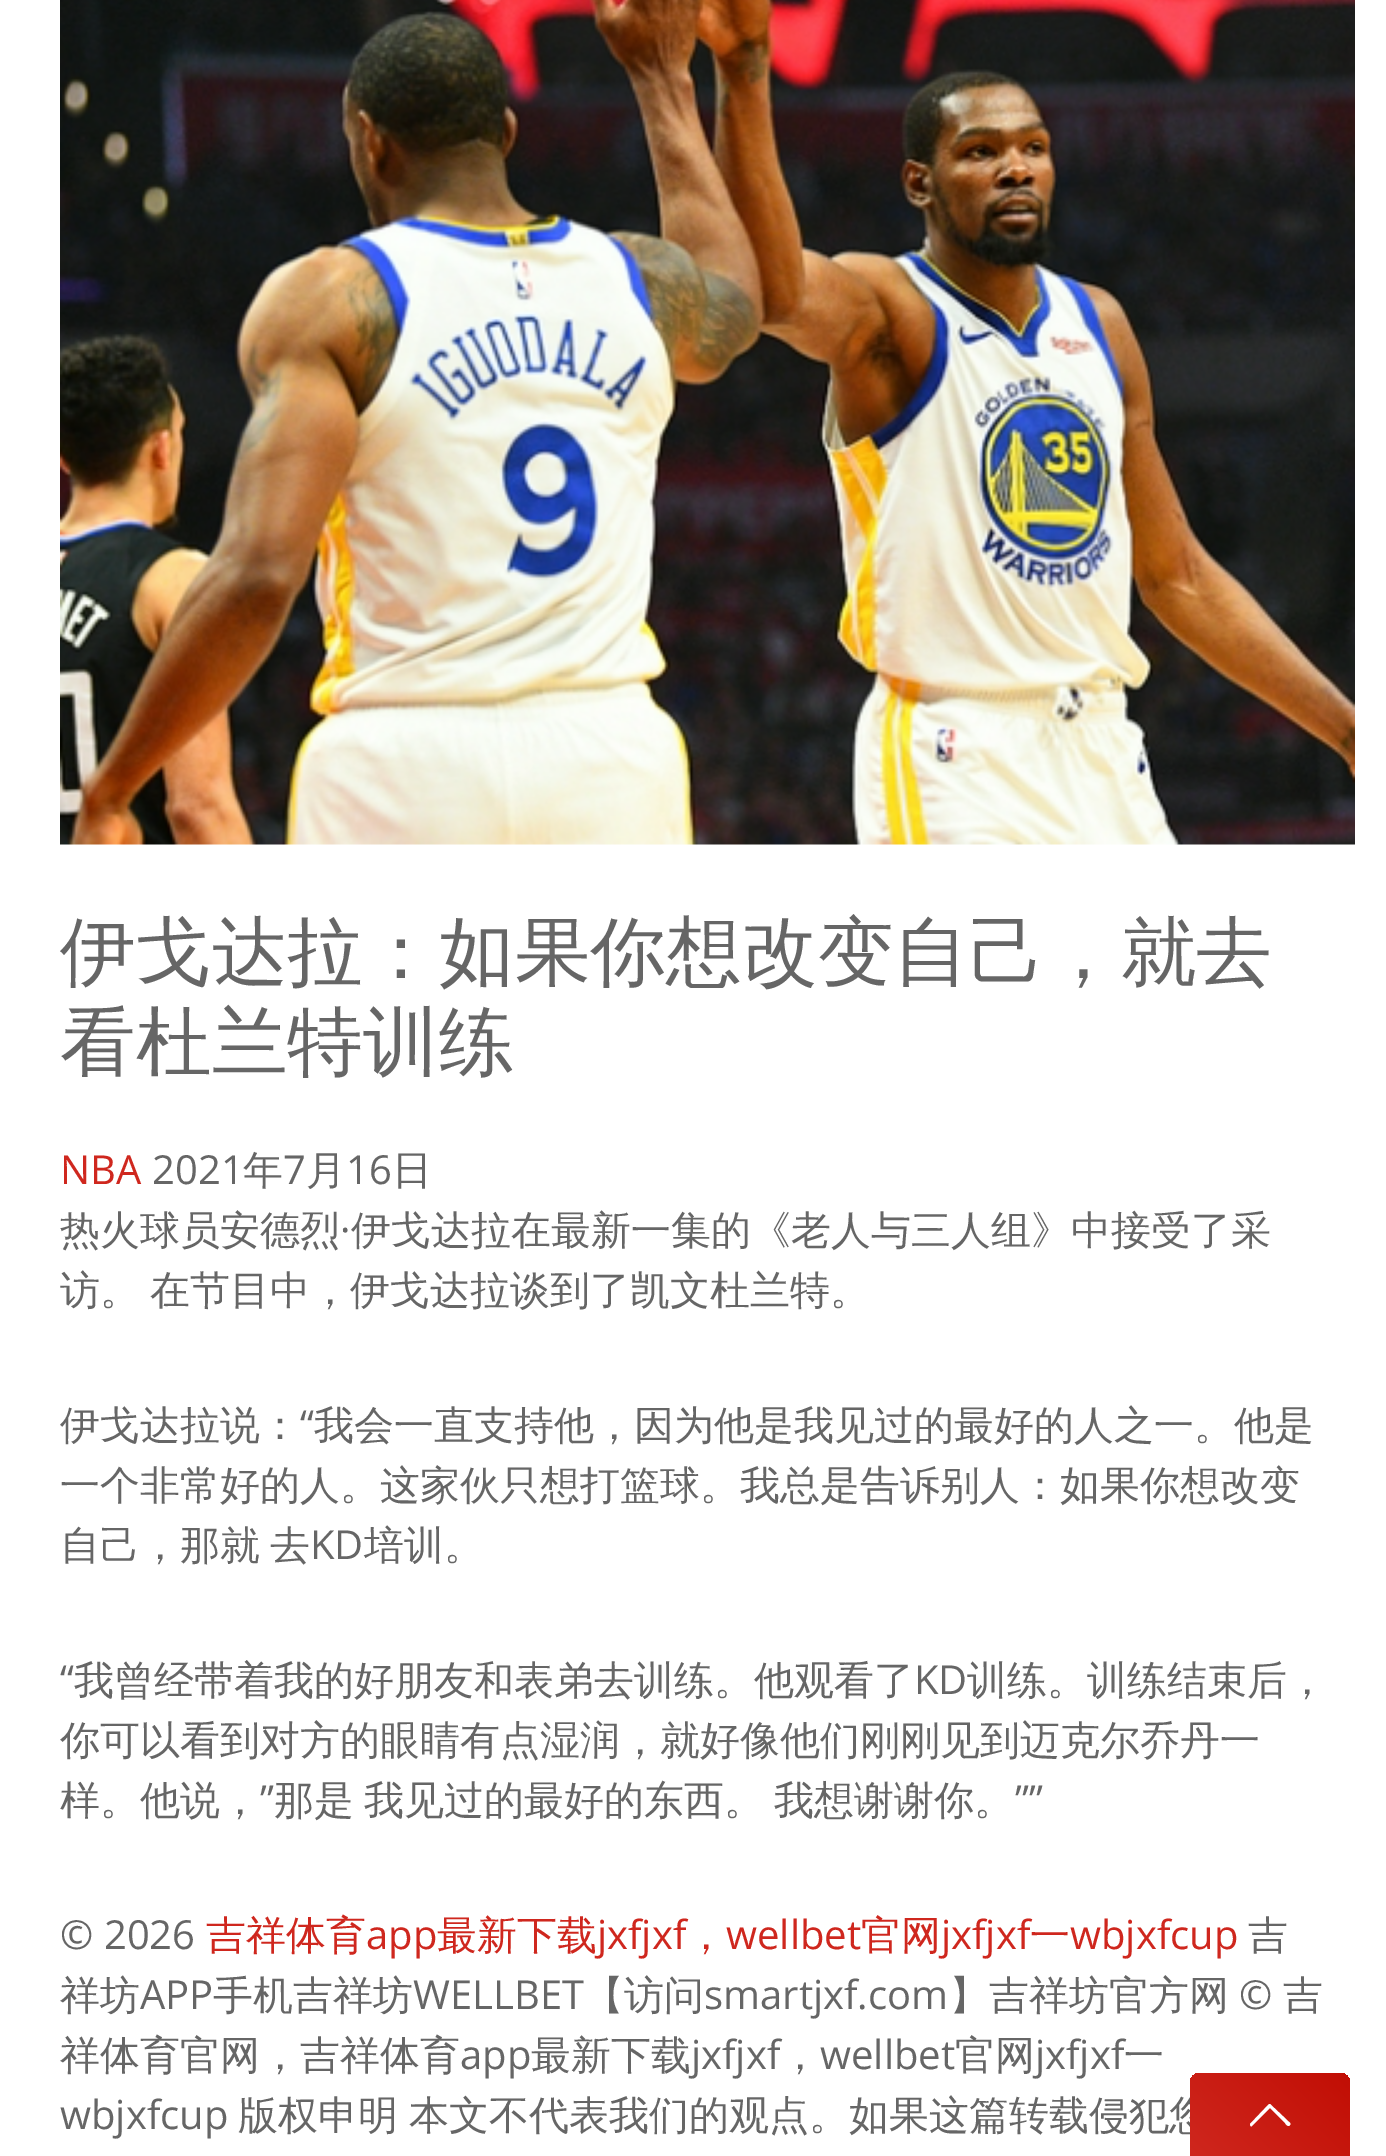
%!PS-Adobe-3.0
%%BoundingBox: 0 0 1386 2156
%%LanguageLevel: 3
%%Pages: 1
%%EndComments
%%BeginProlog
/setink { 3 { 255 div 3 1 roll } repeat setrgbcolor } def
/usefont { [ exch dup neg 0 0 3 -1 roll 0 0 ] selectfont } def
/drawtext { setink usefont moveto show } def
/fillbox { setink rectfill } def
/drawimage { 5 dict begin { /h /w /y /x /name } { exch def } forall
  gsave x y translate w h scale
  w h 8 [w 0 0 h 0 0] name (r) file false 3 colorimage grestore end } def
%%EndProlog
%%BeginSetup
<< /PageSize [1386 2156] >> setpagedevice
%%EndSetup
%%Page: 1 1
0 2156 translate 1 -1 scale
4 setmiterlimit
0 0 1386 2156 255 255 255 fillbox
(assets/img1.rgb) 60 0 1295 845 drawimage
(伊戈达拉：如果你想改变自己，就去) 60 978 /WenQuanYiZenHei-Medium 75.75 102 102 102 drawtext
(看杜兰特训练) 60 1068 /WenQuanYiZenHei-Medium 75.75 102 102 102 drawtext
(NBA) 60 1184 /OpenSans-Regular 40 207 39 30 drawtext
(2021) 152 1184 /OpenSans-Regular 40 102 102 102 drawtext
(年) 243 1184 /WenQuanYiZenHei-Medium 40 102 102 102 drawtext
(7) 283 1184 /OpenSans-Regular 40 102 102 102 drawtext
(月) 306 1184 /WenQuanYiZenHei-Medium 40 102 102 102 drawtext
(16) 346 1184 /OpenSans-Regular 40 102 102 102 drawtext
(日) 392 1184 /WenQuanYiZenHei-Medium 40 102 102 102 drawtext
(热火球员安德烈) 60 1244 /WenQuanYiZenHei-Medium 40 102 102 102 drawtext
(·) 340 1244 /OpenSans-Regular 40 102 102 102 drawtext
(伊戈达拉在最新一集的《老人与三人组》中接受了采) 351 1244 /WenQuanYiZenHei-Medium 40 102 102 102 drawtext
60 1304 moveto -2 0 32 (访。 在节目中，伊戈达拉谈到了凯文杜兰特。) widthshow
(伊戈达拉说：) 60 1439 /WenQuanYiZenHei-Medium 40 102 102 102 drawtext
(“) 300 1439 /OpenSans-Regular 40 102 102 102 drawtext
(我会一直支持他，因为他是我见过的最好的人之一。他是) 314 1439 /WenQuanYiZenHei-Medium 40 102 102 102 drawtext
(一个非常好的人。这家伙只想打篮球。我总是告诉别人：如果你想改变) 60 1499 /WenQuanYiZenHei-Medium 40 102 102 102 drawtext
60 1559 moveto -2 0 32 (自己，那就 去) widthshow
(KD) 310 1559 /OpenSans-Regular 40 102 102 102 drawtext
(培训。) 364 1559 /WenQuanYiZenHei-Medium 40 102 102 102 drawtext
(“) 60 1694 /OpenSans-Regular 40 102 102 102 drawtext
(我曾经带着我的好朋友和表弟去训练。他观看了) 74 1694 /WenQuanYiZenHei-Medium 40 102 102 102 drawtext
(KD) 914 1694 /OpenSans-Regular 40 102 102 102 drawtext
(训练。训练结束后，) 967 1694 /WenQuanYiZenHei-Medium 40 102 102 102 drawtext
(你可以看到对方的眼睛有点湿润，就好像他们刚刚见到迈克尔乔丹一) 60 1754 /WenQuanYiZenHei-Medium 40 102 102 102 drawtext
(样。他说，) 60 1814 /WenQuanYiZenHei-Medium 40 102 102 102 drawtext
(”) 260 1814 /OpenSans-Regular 40 102 102 102 drawtext
/WenQuanYiZenHei-Medium 40 usefont
274 1814 moveto -2 0 32 (那是 我见过的最好的东西。 我想谢谢你。) widthshow
(””) 1015 1814 /OpenSans-Regular 40 102 102 102 drawtext
(© 2026) 60 1949 /OpenSans-Regular 40 102 102 102 drawtext
(吉祥体育) 206 1949 /WenQuanYiZenHei-Medium 40 207 39 30 drawtext
(app) 366 1949 /OpenSans-Regular 40 207 39 30 drawtext
(最新下载) 437 1949 /WenQuanYiZenHei-Medium 40 207 39 30 drawtext
(jxfjxf) 597 1949 /OpenSans-Regular 40 207 39 30 drawtext
(wellbet) 726 1949 /OpenSans-Regular 40 207 39 30 drawtext
(官网) 861 1949 /WenQuanYiZenHei-Medium 40 207 39 30 drawtext
(jxfjxf) 941 1949 /OpenSans-Regular 40 207 39 30 drawtext
(一) 1030 1949 /WenQuanYiZenHei-Medium 40 207 39 30 drawtext
(wbjxfcup) 1070 1949 /OpenSans-Regular 40 207 39 30 drawtext
(吉) 1248 1949 /WenQuanYiZenHei-Medium 40 102 102 102 drawtext
(，) 686 1949 /WenQuanYiZenHei-Medium 40 207 39 30 drawtext
(祥坊) 60 2009 /WenQuanYiZenHei-Medium 40 102 102 102 drawtext
(APP) 140 2009 /OpenSans-Regular 40 102 102 102 drawtext
(手机吉祥坊) 213 2009 /WenQuanYiZenHei-Medium 40 102 102 102 drawtext
(WELLBET) 413 2009 /OpenSans-Regular 40 102 102 102 drawtext
(【访问) 584 2009 /WenQuanYiZenHei-Medium 40 102 102 102 drawtext
(smartjxf.com) 704 2009 /OpenSans-Regular 40 102 102 102 drawtext
(】吉祥坊官方网) 949 2009 /WenQuanYiZenHei-Medium 40 102 102 102 drawtext
(©) 1239 2009 /OpenSans-Regular 40 102 102 102 drawtext
(吉) 1283 2009 /WenQuanYiZenHei-Medium 40 102 102 102 drawtext
(祥体育官网，吉祥体育) 60 2069 /WenQuanYiZenHei-Medium 40 102 102 102 drawtext
(app) 460 2069 /OpenSans-Regular 40 102 102 102 drawtext
(最新下载) 531 2069 /WenQuanYiZenHei-Medium 40 102 102 102 drawtext
(jxfjxf) 691 2069 /OpenSans-Regular 40 102 102 102 drawtext
(wellbet) 820 2069 /OpenSans-Regular 40 102 102 102 drawtext
(官网) 955 2069 /WenQuanYiZenHei-Medium 40 102 102 102 drawtext
(jxfjxf) 1035 2069 /OpenSans-Regular 40 102 102 102 drawtext
(一) 1124 2069 /WenQuanYiZenHei-Medium 40 102 102 102 drawtext
(，) 780 2069 /WenQuanYiZenHei-Medium 40 102 102 102 drawtext
(wbjxfcup) 60 2129 /OpenSans-Regular 40 102 102 102 drawtext
/WenQuanYiZenHei-Medium 40 usefont
238 2129 moveto -1 0 32 (版权申明 本文不代表我们的观点。如果这篇转载侵犯您) widthshow
gsave 1200 2073 moveto 1340 2073 lineto 1345.5 2073 1350 2077.5 1350 2083 curveto 1350 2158 lineto 1190 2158 lineto 1190 2083 lineto 1190 2077.5 1194.5 2073 1200 2073 curveto closepath clip newpath
<< /ShadingType 2 /ColorSpace /DeviceRGB /Coords [1209 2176 1331 2054] /Extend [true true] /Function << /FunctionType 2 /Domain [0 1] /C0 [0.812 0.153 0.118] /C1 [0.757 0.055 0.016] /N 1 >> >> shfill grestore
255 255 255 setink
1269 2104 moveto 1270 2104 lineto 1287 2120 lineto 1287 2121 1292 2123 1290 2125 curveto 1288 2128 1285 2123 1285 2123 curveto 1270 2108 lineto 1252 2126 lineto 1251 2127 1250 2126 1250 2124 curveto closepath fill
showpage
%%EOF
